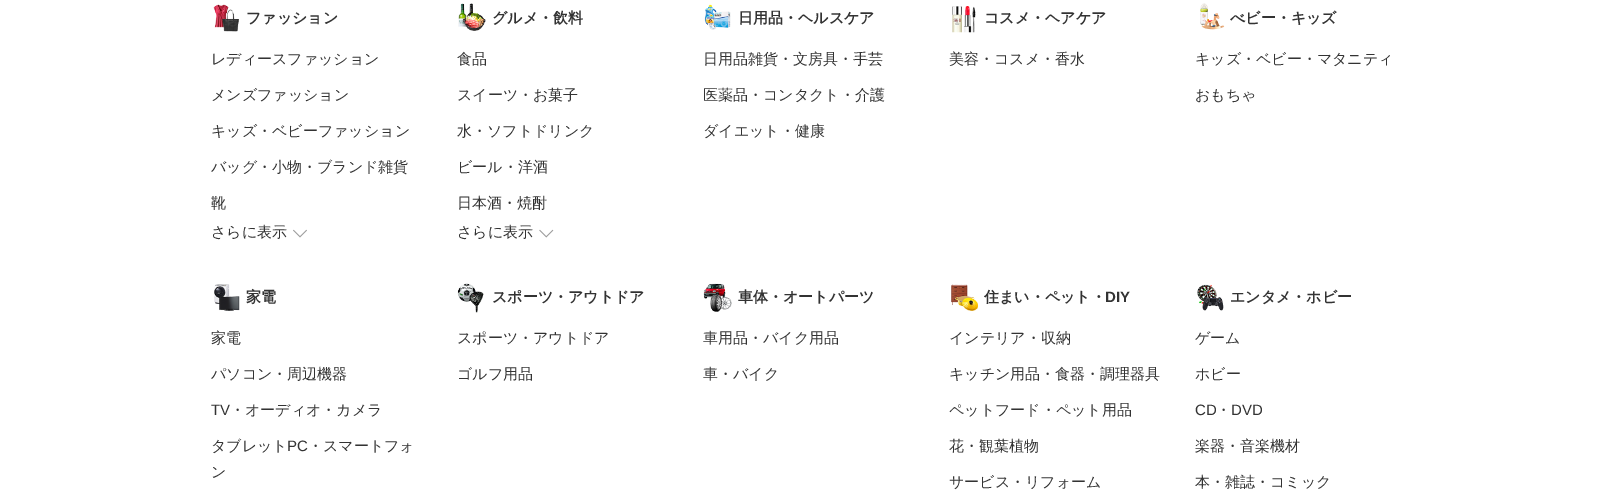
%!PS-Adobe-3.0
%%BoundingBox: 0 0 1621 504
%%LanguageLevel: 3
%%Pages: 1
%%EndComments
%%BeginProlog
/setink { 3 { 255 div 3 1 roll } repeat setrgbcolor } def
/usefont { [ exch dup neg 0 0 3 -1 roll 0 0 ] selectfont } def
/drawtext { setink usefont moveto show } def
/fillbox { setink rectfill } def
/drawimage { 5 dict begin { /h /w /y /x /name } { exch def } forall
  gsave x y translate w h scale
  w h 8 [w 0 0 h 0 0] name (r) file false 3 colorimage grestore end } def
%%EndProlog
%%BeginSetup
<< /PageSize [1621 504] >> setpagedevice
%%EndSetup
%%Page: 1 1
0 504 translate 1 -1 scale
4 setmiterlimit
0 0 1621 504 255 255 255 fillbox
(assets/img1.rgb) 213 4 26 28 drawimage
(ファッション) 246 23 /WenQuanYiZenHei-Bold 15 51 51 51 drawtext
(レディースファッション) 211 64 /WenQuanYiZenHei-Medium 15 51 51 51 drawtext
(メンズファッション) 211 100 /WenQuanYiZenHei-Medium 15 51 51 51 drawtext
(キッズ・ベビーファッション) 211 136 /WenQuanYiZenHei-Medium 15 51 51 51 drawtext
(バッグ・小物・ブランド雑貨) 211 172 /WenQuanYiZenHei-Medium 15 51 51 51 drawtext
(靴) 211 208 /WenQuanYiZenHei-Medium 15 51 51 51 drawtext
(さらに表示) 211 237 /WenQuanYiZenHei-Medium 15 51 51 51 drawtext
(assets/img2.rgb) 293 229 14 9 drawimage
(assets/img3.rgb) 458 3 28 28 drawimage
(グルメ・飲料) 492 23 /WenQuanYiZenHei-Bold 15 51 51 51 drawtext
(食品) 457 64 /WenQuanYiZenHei-Medium 15 51 51 51 drawtext
(スイーツ・お菓子) 457 100 /WenQuanYiZenHei-Medium 15 51 51 51 drawtext
(水・ソフトドリンク) 457 136 /WenQuanYiZenHei-Medium 15 51 51 51 drawtext
(ビール・洋酒) 457 172 /WenQuanYiZenHei-Medium 15 51 51 51 drawtext
(日本酒・焼酎) 457 208 /WenQuanYiZenHei-Medium 15 51 51 51 drawtext
(さらに表示) 457 237 /WenQuanYiZenHei-Medium 15 51 51 51 drawtext
(assets/img4.rgb) 539 229 15 9 drawimage
(assets/img5.rgb) 704 4 27 26 drawimage
(日用品・ヘルスケア) 738 23 /WenQuanYiZenHei-Bold 15 51 51 51 drawtext
(日用品雑貨・文房具・手芸) 703 64 /WenQuanYiZenHei-Medium 15 51 51 51 drawtext
(医薬品・コンタクト・介護) 703 100 /WenQuanYiZenHei-Medium 15 51 51 51 drawtext
(ダイエット・健康) 703 136 /WenQuanYiZenHei-Medium 15 51 51 51 drawtext
(assets/img6.rgb) 952 6 24 27 drawimage
(コスメ・ヘアケア) 984 23 /WenQuanYiZenHei-Bold 15 51 51 51 drawtext
(美容・コスメ・香水) 949 64 /WenQuanYiZenHei-Medium 15 51 51 51 drawtext
(assets/img7.rgb) 1200 3 25 27 drawimage
(べビー・キッズ) 1230 23 /WenQuanYiZenHei-Bold 15 51 51 51 drawtext
(キッズ・ベビー・マタニティ) 1195 64 /WenQuanYiZenHei-Medium 15 51 51 51 drawtext
(おもちゃ) 1195 100 /WenQuanYiZenHei-Medium 15 51 51 51 drawtext
(assets/img8.rgb) 214 284 26 27 drawimage
(家電) 246 302 /WenQuanYiZenHei-Bold 15 51 51 51 drawtext
(家電) 211 343 /WenQuanYiZenHei-Medium 15 51 51 51 drawtext
(パソコン・周辺機器) 211 379 /WenQuanYiZenHei-Medium 15 51 51 51 drawtext
(TV) 211 415 /LiberationSans-Regular 15 51 51 51 drawtext
(・オーディオ・カメラ) 230 415 /WenQuanYiZenHei-Medium 15 51 51 51 drawtext
(タブレット) 211 451 /WenQuanYiZenHei-Medium 15 51 51 51 drawtext
(PC) 287 451 /LiberationSans-Regular 15 51 51 51 drawtext
(・スマートフォ) 308 451 /WenQuanYiZenHei-Medium 15 51 51 51 drawtext
(ン) 211 477 /WenQuanYiZenHei-Medium 15 51 51 51 drawtext
(assets/img9.rgb) 457 283 27 30 drawimage
(スポーツ・アウトドア) 492 302 /WenQuanYiZenHei-Bold 15 51 51 51 drawtext
(スポーツ・アウトドア) 457 343 /WenQuanYiZenHei-Medium 15 51 51 51 drawtext
(ゴルフ用品) 457 379 /WenQuanYiZenHei-Medium 15 51 51 51 drawtext
(assets/img10.rgb) 703 283 29 29 drawimage
(車体・オートパーツ) 738 302 /WenQuanYiZenHei-Bold 15 51 51 51 drawtext
(車用品・バイク用品) 703 343 /WenQuanYiZenHei-Medium 15 51 51 51 drawtext
(車・バイク) 703 379 /WenQuanYiZenHei-Medium 15 51 51 51 drawtext
(assets/img11.rgb) 951 284 28 27 drawimage
(住まい・ペット・) 984 302 /WenQuanYiZenHei-Bold 15 51 51 51 drawtext
(DIY) 1105 302 /LiberationSans-Bold 15 51 51 51 drawtext
(インテリア・収納) 949 343 /WenQuanYiZenHei-Medium 15 51 51 51 drawtext
(キッチン用品・食器・調理器具) 949 379 /WenQuanYiZenHei-Medium 15 51 51 51 drawtext
(ペットフード・ペット用品) 949 415 /WenQuanYiZenHei-Medium 15 51 51 51 drawtext
(花・観葉植物) 949 451 /WenQuanYiZenHei-Medium 15 51 51 51 drawtext
(サービス・リフォーム) 949 487 /WenQuanYiZenHei-Medium 15 51 51 51 drawtext
(assets/img12.rgb) 1197 284 27 27 drawimage
(エンタメ・ホビー) 1230 302 /WenQuanYiZenHei-Bold 15 51 51 51 drawtext
(ゲーム) 1195 343 /WenQuanYiZenHei-Medium 15 51 51 51 drawtext
(ホビー) 1195 379 /WenQuanYiZenHei-Medium 15 51 51 51 drawtext
(CD) 1195 415 /LiberationSans-Regular 15 51 51 51 drawtext
(・) 1216 415 /WenQuanYiZenHei-Medium 15 51 51 51 drawtext
(DVD) 1231 415 /LiberationSans-Regular 15 51 51 51 drawtext
(楽器・音楽機材) 1195 451 /WenQuanYiZenHei-Medium 15 51 51 51 drawtext
(本・雑誌・コミック) 1195 487 /WenQuanYiZenHei-Medium 15 51 51 51 drawtext
showpage
%%EOF
